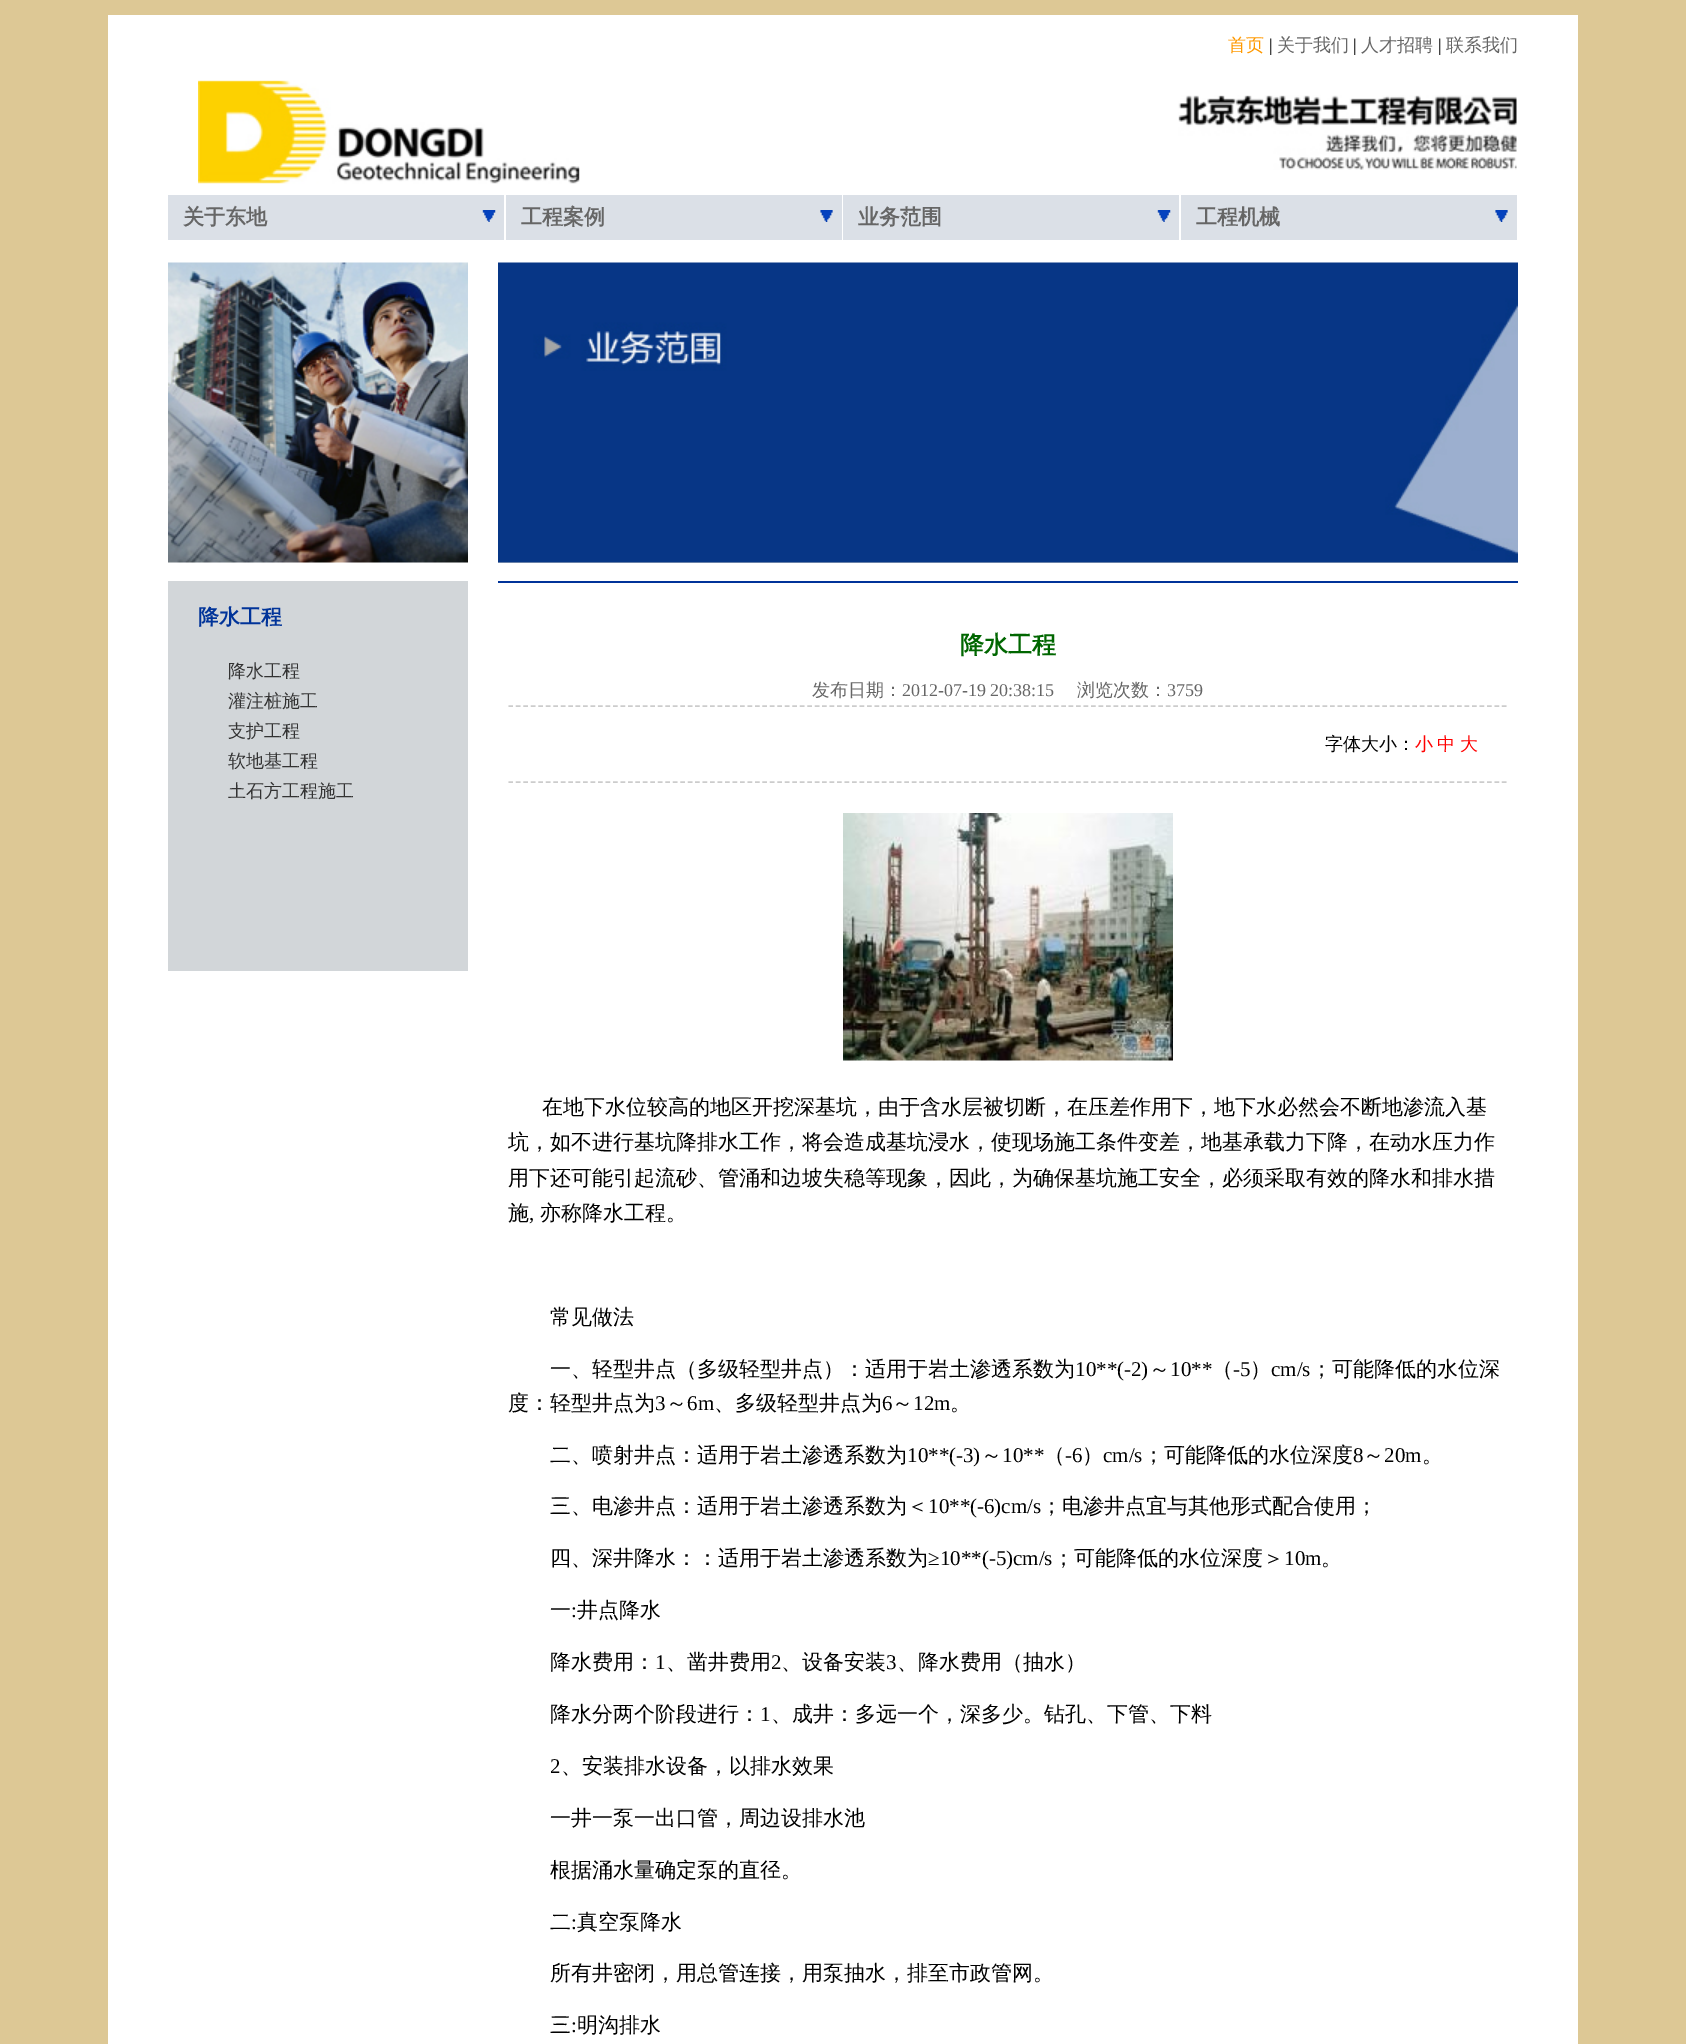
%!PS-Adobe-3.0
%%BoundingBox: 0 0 1686 2044
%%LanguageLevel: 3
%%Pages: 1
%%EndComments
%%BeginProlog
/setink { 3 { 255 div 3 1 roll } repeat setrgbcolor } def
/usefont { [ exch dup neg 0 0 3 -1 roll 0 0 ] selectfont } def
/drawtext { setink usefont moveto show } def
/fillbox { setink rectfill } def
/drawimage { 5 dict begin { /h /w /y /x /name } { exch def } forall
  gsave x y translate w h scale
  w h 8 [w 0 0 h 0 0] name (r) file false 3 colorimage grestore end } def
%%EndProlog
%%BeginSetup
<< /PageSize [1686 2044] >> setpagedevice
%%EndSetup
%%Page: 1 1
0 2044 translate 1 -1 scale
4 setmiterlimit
0 0 1686 2044 221 200 149 fillbox
108 15 1470 2029 255 255 255 fillbox
(首页) 1228 51 /WenQuanYiZenHei-Medium 18 255 153 0 drawtext
(|) 1269 51 /LiberationSerif-Regular 18 0 0 0 drawtext
(关于我们) 1277 51 /WenQuanYiZenHei-Medium 18 102 102 102 drawtext
(|) 1353 51 /LiberationSerif-Regular 18 0 0 0 drawtext
(人才招聘) 1361 51 /WenQuanYiZenHei-Medium 18 102 102 102 drawtext
(|) 1438 51 /LiberationSerif-Regular 18 0 0 0 drawtext
(联系我们) 1446 51 /WenQuanYiZenHei-Medium 18 102 102 102 drawtext
(assets/img1.rgb) 198 80 382 104 drawimage
(assets/img2.rgb) 1178 95 339 75 drawimage
168 195 336 45 219 224 231 fillbox
(关于东地) 183 224 /WenQuanYiZenHei-Bold 21 102 102 102 drawtext
(assets/img3.rgb) 482 210 14 12 drawimage
506 195 336 45 219 224 231 fillbox
(工程案例) 521 224 /WenQuanYiZenHei-Bold 21 102 102 102 drawtext
(assets/img4.rgb) 820 210 13 12 drawimage
843 195 336 45 219 224 231 fillbox
(业务范围) 858 224 /WenQuanYiZenHei-Bold 21 102 102 102 drawtext
(assets/img3.rgb) 1157 210 14 12 drawimage
1181 195 336 45 219 224 231 fillbox
(工程机械) 1196 224 /WenQuanYiZenHei-Bold 21 102 102 102 drawtext
(assets/img4.rgb) 1495 210 13 12 drawimage
(assets/img5.rgb) 168 262 300 301 drawimage
168 581 300 390 210 214 217 fillbox
(降水工程) 198 624 /WenQuanYiZenHei-Bold 21 0 51 153 drawtext
(降水工程) 228 677 /WenQuanYiZenHei-Medium 18 51 51 51 drawtext
(灌注桩施工) 228 707 /WenQuanYiZenHei-Medium 18 51 51 51 drawtext
(支护工程) 228 737 /WenQuanYiZenHei-Medium 18 51 51 51 drawtext
(软地基工程) 228 767 /WenQuanYiZenHei-Medium 18 51 51 51 drawtext
(土石方工程施工) 228 797 /WenQuanYiZenHei-Medium 18 51 51 51 drawtext
498 562 1020 1 204 204 204 fillbox
(assets/img6.rgb) 498 262 1020 301 drawimage
498 581 1020 2 0 51 153 fillbox
(降水工程) 960 653 /WenQuanYiZenHei-Bold 24 0 102 0 drawtext
204 204 204 setink
1.5 setlinewidth
[4.5 2.97] 0 setdash
508.5 706 moveto 1507.5 706 lineto stroke
(发布日期：) 812 696 /WenQuanYiZenHei-Medium 18 102 102 102 drawtext
(2012-07-19 20:38:15) 902 696 /LiberationSerif-Regular 18 102 102 102 drawtext
(浏览次数：) 1077 696 /WenQuanYiZenHei-Medium 18 102 102 102 drawtext
(3759) 1167 696 /LiberationSerif-Regular 18 102 102 102 drawtext
204 204 204 setink
508.5 782 moveto 1507.5 782 lineto stroke
(字体大小：) 1325 750 /WenQuanYiZenHei-Medium 18 0 0 0 drawtext
(小) 1415 750 /WenQuanYiZenHei-Medium 18 255 0 0 drawtext
(中) 1437 750 /WenQuanYiZenHei-Medium 18 255 0 0 drawtext
(大) 1460 750 /WenQuanYiZenHei-Medium 18 255 0 0 drawtext
(assets/img7.rgb) 843 813 330 248 drawimage
(在地下水位较高的地区开挖深基坑，由于含水层被切断，在压差作用下，地下水必然会不断地渗流入基) 542 1114 /WenQuanYiZenHei-Medium 21 0 0 0 drawtext
(坑，如不进行基坑降排水工作，将会造成基坑浸水，使现场施工条件变差，地基承载力下降，在动水压力作) 508 1149 /WenQuanYiZenHei-Medium 21 0 0 0 drawtext
(用下还可能引起流砂、管涌和边坡失稳等现象，因此，为确保基坑施工安全，必须采取有效的降水和排水措) 508 1185 /WenQuanYiZenHei-Medium 21 0 0 0 drawtext
(施) 508 1220 /WenQuanYiZenHei-Medium 21 0 0 0 drawtext
(,) 529 1220 /LiberationSerif-Regular 21 0 0 0 drawtext
(亦称降水工程。) 540 1220 /WenQuanYiZenHei-Medium 21 0 0 0 drawtext
(常见做法) 550 1324 /WenQuanYiZenHei-Medium 21 0 0 0 drawtext
(一、轻型井点（多级轻型井点）：适用于岩土渗透系数为) 550 1376 /WenQuanYiZenHei-Medium 21 0 0 0 drawtext
(10**\(-2\)) 1075 1376 /LiberationSerif-Regular 21 0 0 0 drawtext
(～) 1149 1376 /WenQuanYiZenHei-Medium 21 0 0 0 drawtext
(10**) 1170 1376 /LiberationSerif-Regular 21 0 0 0 drawtext
(（) 1212 1376 /WenQuanYiZenHei-Medium 21 0 0 0 drawtext
(-5) 1233 1376 /LiberationSerif-Regular 21 0 0 0 drawtext
(）) 1250 1376 /WenQuanYiZenHei-Medium 21 0 0 0 drawtext
(cm/s) 1271 1376 /LiberationSerif-Regular 21 0 0 0 drawtext
(；可能降低的水位深) 1311 1376 /WenQuanYiZenHei-Medium 21 0 0 0 drawtext
(度：轻型井点为) 508 1410 /WenQuanYiZenHei-Medium 21 0 0 0 drawtext
(3) 655 1410 /LiberationSerif-Regular 21 0 0 0 drawtext
(～) 666 1410 /WenQuanYiZenHei-Medium 21 0 0 0 drawtext
(6m) 687 1410 /LiberationSerif-Regular 21 0 0 0 drawtext
(、多级轻型井点为) 714 1410 /WenQuanYiZenHei-Medium 21 0 0 0 drawtext
(6) 882 1410 /LiberationSerif-Regular 21 0 0 0 drawtext
(～) 892 1410 /WenQuanYiZenHei-Medium 21 0 0 0 drawtext
(12m) 913 1410 /LiberationSerif-Regular 21 0 0 0 drawtext
(。) 950 1410 /WenQuanYiZenHei-Medium 21 0 0 0 drawtext
(二、喷射井点：适用于岩土渗透系数为) 550 1462 /WenQuanYiZenHei-Medium 21 0 0 0 drawtext
(10**\(-3\)) 907 1462 /LiberationSerif-Regular 21 0 0 0 drawtext
(～) 981 1462 /WenQuanYiZenHei-Medium 21 0 0 0 drawtext
(10**) 1002 1462 /LiberationSerif-Regular 21 0 0 0 drawtext
(（) 1044 1462 /WenQuanYiZenHei-Medium 21 0 0 0 drawtext
(-6) 1065 1462 /LiberationSerif-Regular 21 0 0 0 drawtext
(）) 1082 1462 /WenQuanYiZenHei-Medium 21 0 0 0 drawtext
(cm/s) 1103 1462 /LiberationSerif-Regular 21 0 0 0 drawtext
(；可能降低的水位深度) 1143 1462 /WenQuanYiZenHei-Medium 21 0 0 0 drawtext
(8) 1353 1462 /LiberationSerif-Regular 21 0 0 0 drawtext
(～) 1363 1462 /WenQuanYiZenHei-Medium 21 0 0 0 drawtext
(20m) 1384 1462 /LiberationSerif-Regular 21 0 0 0 drawtext
(。) 1422 1462 /WenQuanYiZenHei-Medium 21 0 0 0 drawtext
(三、电渗井点：适用于岩土渗透系数为＜) 550 1513 /WenQuanYiZenHei-Medium 21 0 0 0 drawtext
(10**\(-6\)cm/s) 928 1513 /LiberationSerif-Regular 21 0 0 0 drawtext
(；电渗井点宜与其他形式配合使用；) 1041 1513 /WenQuanYiZenHei-Medium 21 0 0 0 drawtext
(四、深井降水：：适用于岩土渗透系数为) 550 1565 /WenQuanYiZenHei-Medium 21 0 0 0 drawtext
(≥10**\(-5\)cm/s) 928 1565 /LiberationSerif-Regular 21 0 0 0 drawtext
(；可能降低的水位深度＞) 1053 1565 /WenQuanYiZenHei-Medium 21 0 0 0 drawtext
(10m) 1284 1565 /LiberationSerif-Regular 21 0 0 0 drawtext
(。) 1321 1565 /WenQuanYiZenHei-Medium 21 0 0 0 drawtext
(一) 550 1617 /WenQuanYiZenHei-Medium 21 0 0 0 drawtext
(:) 571 1617 /LiberationSerif-Regular 21 0 0 0 drawtext
(井点降水) 577 1617 /WenQuanYiZenHei-Medium 21 0 0 0 drawtext
(降水费用：) 550 1669 /WenQuanYiZenHei-Medium 21 0 0 0 drawtext
(1) 655 1669 /LiberationSerif-Regular 21 0 0 0 drawtext
(、凿井费用) 666 1669 /WenQuanYiZenHei-Medium 21 0 0 0 drawtext
(2) 771 1669 /LiberationSerif-Regular 21 0 0 0 drawtext
(、设备安装) 781 1669 /WenQuanYiZenHei-Medium 21 0 0 0 drawtext
(3) 886 1669 /LiberationSerif-Regular 21 0 0 0 drawtext
(、降水费用（抽水）) 897 1669 /WenQuanYiZenHei-Medium 21 0 0 0 drawtext
(降水分两个阶段进行：) 550 1721 /WenQuanYiZenHei-Medium 21 0 0 0 drawtext
(1) 760 1721 /LiberationSerif-Regular 21 0 0 0 drawtext
(、成井：多远一个，深多少。钻孔、下管、下料) 771 1721 /WenQuanYiZenHei-Medium 21 0 0 0 drawtext
(2) 550 1773 /LiberationSerif-Regular 21 0 0 0 drawtext
(、安装排水设备，以排水效果) 561 1773 /WenQuanYiZenHei-Medium 21 0 0 0 drawtext
(一井一泵一出口管，周边设排水池) 550 1825 /WenQuanYiZenHei-Medium 21 0 0 0 drawtext
(根据涌水量确定泵的直径。) 550 1877 /WenQuanYiZenHei-Medium 21 0 0 0 drawtext
(二) 550 1929 /WenQuanYiZenHei-Medium 21 0 0 0 drawtext
(:) 571 1929 /LiberationSerif-Regular 21 0 0 0 drawtext
(真空泵降水) 577 1929 /WenQuanYiZenHei-Medium 21 0 0 0 drawtext
(所有井密闭，用总管连接，用泵抽水，排至市政管网。) 550 1980 /WenQuanYiZenHei-Medium 21 0 0 0 drawtext
(三) 550 2032 /WenQuanYiZenHei-Medium 21 0 0 0 drawtext
(:) 571 2032 /LiberationSerif-Regular 21 0 0 0 drawtext
(明沟排水) 577 2032 /WenQuanYiZenHei-Medium 21 0 0 0 drawtext
showpage
%%EOF
